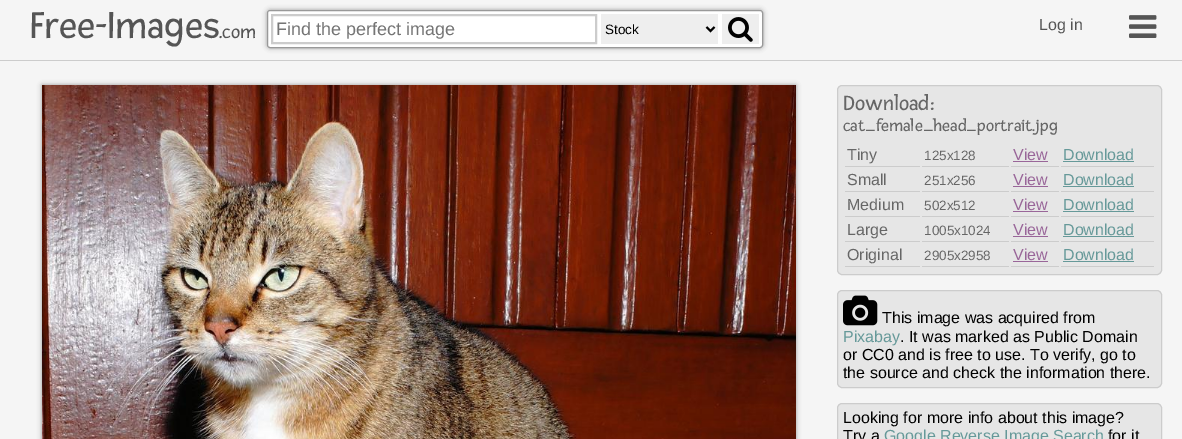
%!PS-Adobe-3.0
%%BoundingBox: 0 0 1182 439
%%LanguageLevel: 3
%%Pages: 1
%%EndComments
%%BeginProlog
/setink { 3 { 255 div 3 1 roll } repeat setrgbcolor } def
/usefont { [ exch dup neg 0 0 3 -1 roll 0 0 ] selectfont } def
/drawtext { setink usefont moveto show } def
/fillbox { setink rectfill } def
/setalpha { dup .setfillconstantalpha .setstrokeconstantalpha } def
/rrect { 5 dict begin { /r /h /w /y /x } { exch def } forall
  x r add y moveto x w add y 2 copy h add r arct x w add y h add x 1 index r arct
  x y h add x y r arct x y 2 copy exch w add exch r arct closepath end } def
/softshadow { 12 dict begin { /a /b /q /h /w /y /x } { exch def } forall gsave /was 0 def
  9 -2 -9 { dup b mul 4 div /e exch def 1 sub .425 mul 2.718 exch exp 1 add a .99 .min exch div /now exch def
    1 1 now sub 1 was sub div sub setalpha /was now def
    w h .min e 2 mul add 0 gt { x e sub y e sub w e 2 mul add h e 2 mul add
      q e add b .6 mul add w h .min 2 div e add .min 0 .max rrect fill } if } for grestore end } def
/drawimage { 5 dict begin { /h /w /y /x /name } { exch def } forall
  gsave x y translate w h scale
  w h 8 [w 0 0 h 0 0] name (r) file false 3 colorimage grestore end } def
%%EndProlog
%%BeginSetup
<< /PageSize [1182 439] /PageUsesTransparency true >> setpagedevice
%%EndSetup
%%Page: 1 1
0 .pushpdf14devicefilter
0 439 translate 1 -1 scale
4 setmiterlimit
0 0 1182 439 245 245 245 fillbox
0 60 1182 1 204 204 204 fillbox
(Free-Images) 30 38 /Fresca-Regular 40 85 85 85 drawtext
(.com) 219 38 /Fresca-Regular 20 85 85 85 drawtext
153 153 153 setink
267 10 496 38 3 2.5 1 softshadow
255 255 255 setink
267.5 10.5 495 37 2.5 rrect gsave fill grestore
153 153 153 setink
stroke
204 204 204 setink
2 setlinewidth
272 15 324 28 rectstroke
(Find the perfect image) 276 35 /LiberationSans-Regular 18 117 117 117 drawtext
601 14 117 30 238 238 238 fillbox
0 0 0 setink
706.5 27 moveto 710.5 31 lineto 714.5 27 lineto stroke
(Stock) 605 34 /LiberationSans-Regular 13.5 0 0 0 drawtext
722 14 37 30 238 238 238 fillbox
(assets/img1.rgb) 728 17 25 25 drawimage
(Log in) 1039 30 /LiberationSans-Regular 16 85 85 85 drawtext
(assets/img2.rgb) 1129 15 28 23 drawimage
153 153 153 setink
42 85 754 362 0 2.5 1 softshadow
(assets/img3.rgb) 42 85 754 354 drawimage
230 230 230 setink
837.5 85.5 324 189 4.5 rrect gsave fill grestore
204 204 204 setink
1 setlinewidth
stroke
(Download:) 843 110 /Fresca-Regular 22 102 102 102 drawtext
(cat_female_head_portrait.jpg) 843 131 /Fresca-Regular 17.6 102 102 102 drawtext
845 166 75 1 204 204 204 fillbox
(Tiny) 847 160 /LiberationSans-Regular 16 102 102 102 drawtext
922 166 87 1 204 204 204 fillbox
(125x128) 924 160 /LiberationSans-Regular 13.5 102 102 102 drawtext
1011 166 48 1 204 204 204 fillbox
(View) 1013 160 /LiberationSans-Regular 16 153 102 153 drawtext
1013 161 35 1 153 102 153 fillbox
1061 166 93 1 204 204 204 fillbox
(Download) 1063 160 /LiberationSans-Regular 16 102 153 153 drawtext
1063 161 71 1 102 153 153 fillbox
845 191 75 1 204 204 204 fillbox
(Small) 847 185 /LiberationSans-Regular 16 102 102 102 drawtext
922 191 87 1 204 204 204 fillbox
(251x256) 924 185 /LiberationSans-Regular 13.5 102 102 102 drawtext
1011 191 48 1 204 204 204 fillbox
(View) 1013 185 /LiberationSans-Regular 16 153 102 153 drawtext
1013 186 35 1 153 102 153 fillbox
1061 191 93 1 204 204 204 fillbox
(Download) 1063 185 /LiberationSans-Regular 16 102 153 153 drawtext
1063 186 71 1 102 153 153 fillbox
845 216 75 1 204 204 204 fillbox
(Medium) 847 210 /LiberationSans-Regular 16 102 102 102 drawtext
922 216 87 1 204 204 204 fillbox
(502x512) 924 210 /LiberationSans-Regular 13.5 102 102 102 drawtext
1011 216 48 1 204 204 204 fillbox
(View) 1013 210 /LiberationSans-Regular 16 153 102 153 drawtext
1013 211 35 1 153 102 153 fillbox
1061 216 93 1 204 204 204 fillbox
(Download) 1063 210 /LiberationSans-Regular 16 102 153 153 drawtext
1063 211 71 1 102 153 153 fillbox
845 241 75 1 204 204 204 fillbox
(Large) 847 235 /LiberationSans-Regular 16 102 102 102 drawtext
922 241 87 1 204 204 204 fillbox
(1005x1024) 924 235 /LiberationSans-Regular 13.5 102 102 102 drawtext
1011 241 48 1 204 204 204 fillbox
(View) 1013 235 /LiberationSans-Regular 16 153 102 153 drawtext
1013 236 35 1 153 102 153 fillbox
1061 241 93 1 204 204 204 fillbox
(Download) 1063 235 /LiberationSans-Regular 16 102 153 153 drawtext
1063 236 71 1 102 153 153 fillbox
845 266 75 1 204 204 204 fillbox
(Original) 847 260 /LiberationSans-Regular 16 102 102 102 drawtext
922 266 87 1 204 204 204 fillbox
(2905x2958) 924 260 /LiberationSans-Regular 13.5 102 102 102 drawtext
1011 266 48 1 204 204 204 fillbox
(View) 1013 260 /LiberationSans-Regular 16 153 102 153 drawtext
1013 261 35 1 153 102 153 fillbox
1061 266 93 1 204 204 204 fillbox
(Download) 1063 260 /LiberationSans-Regular 16 102 153 153 drawtext
1063 261 71 1 102 153 153 fillbox
230 230 230 setink
837.5 290.5 324 97 4.5 rrect gsave fill grestore
204 204 204 setink
stroke
(assets/img4.rgb) 843 295 35 31 drawimage
(This image was acquired from) 882 323 /LiberationSans-Regular 16 0 0 0 drawtext
(Pixabay) 843 342 /LiberationSans-Regular 16 102 153 153 drawtext
(. It was marked as Public Domain) 900 342 /LiberationSans-Regular 16 0 0 0 drawtext
(or CC0 and is free to use. To verify, go to) 843 360 /LiberationSans-Regular 16 0 0 0 drawtext
(the source and check the information there.) 843 378 /LiberationSans-Regular 16 0 0 0 drawtext
230 230 230 setink
837.5 403.5 324 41 4.5 rrect gsave fill grestore
204 204 204 setink
stroke
(Looking for more info about this image?) 843 423 /LiberationSans-Regular 16 0 0 0 drawtext
(Try a) 843 441 /LiberationSans-Regular 16 0 0 0 drawtext
(Google Reverse Image Search) 884 441 /LiberationSans-Regular 16 102 153 153 drawtext
(for it) 1108 441 /LiberationSans-Regular 16 0 0 0 drawtext
.poppdf14devicefilter showpage
%%EOF
